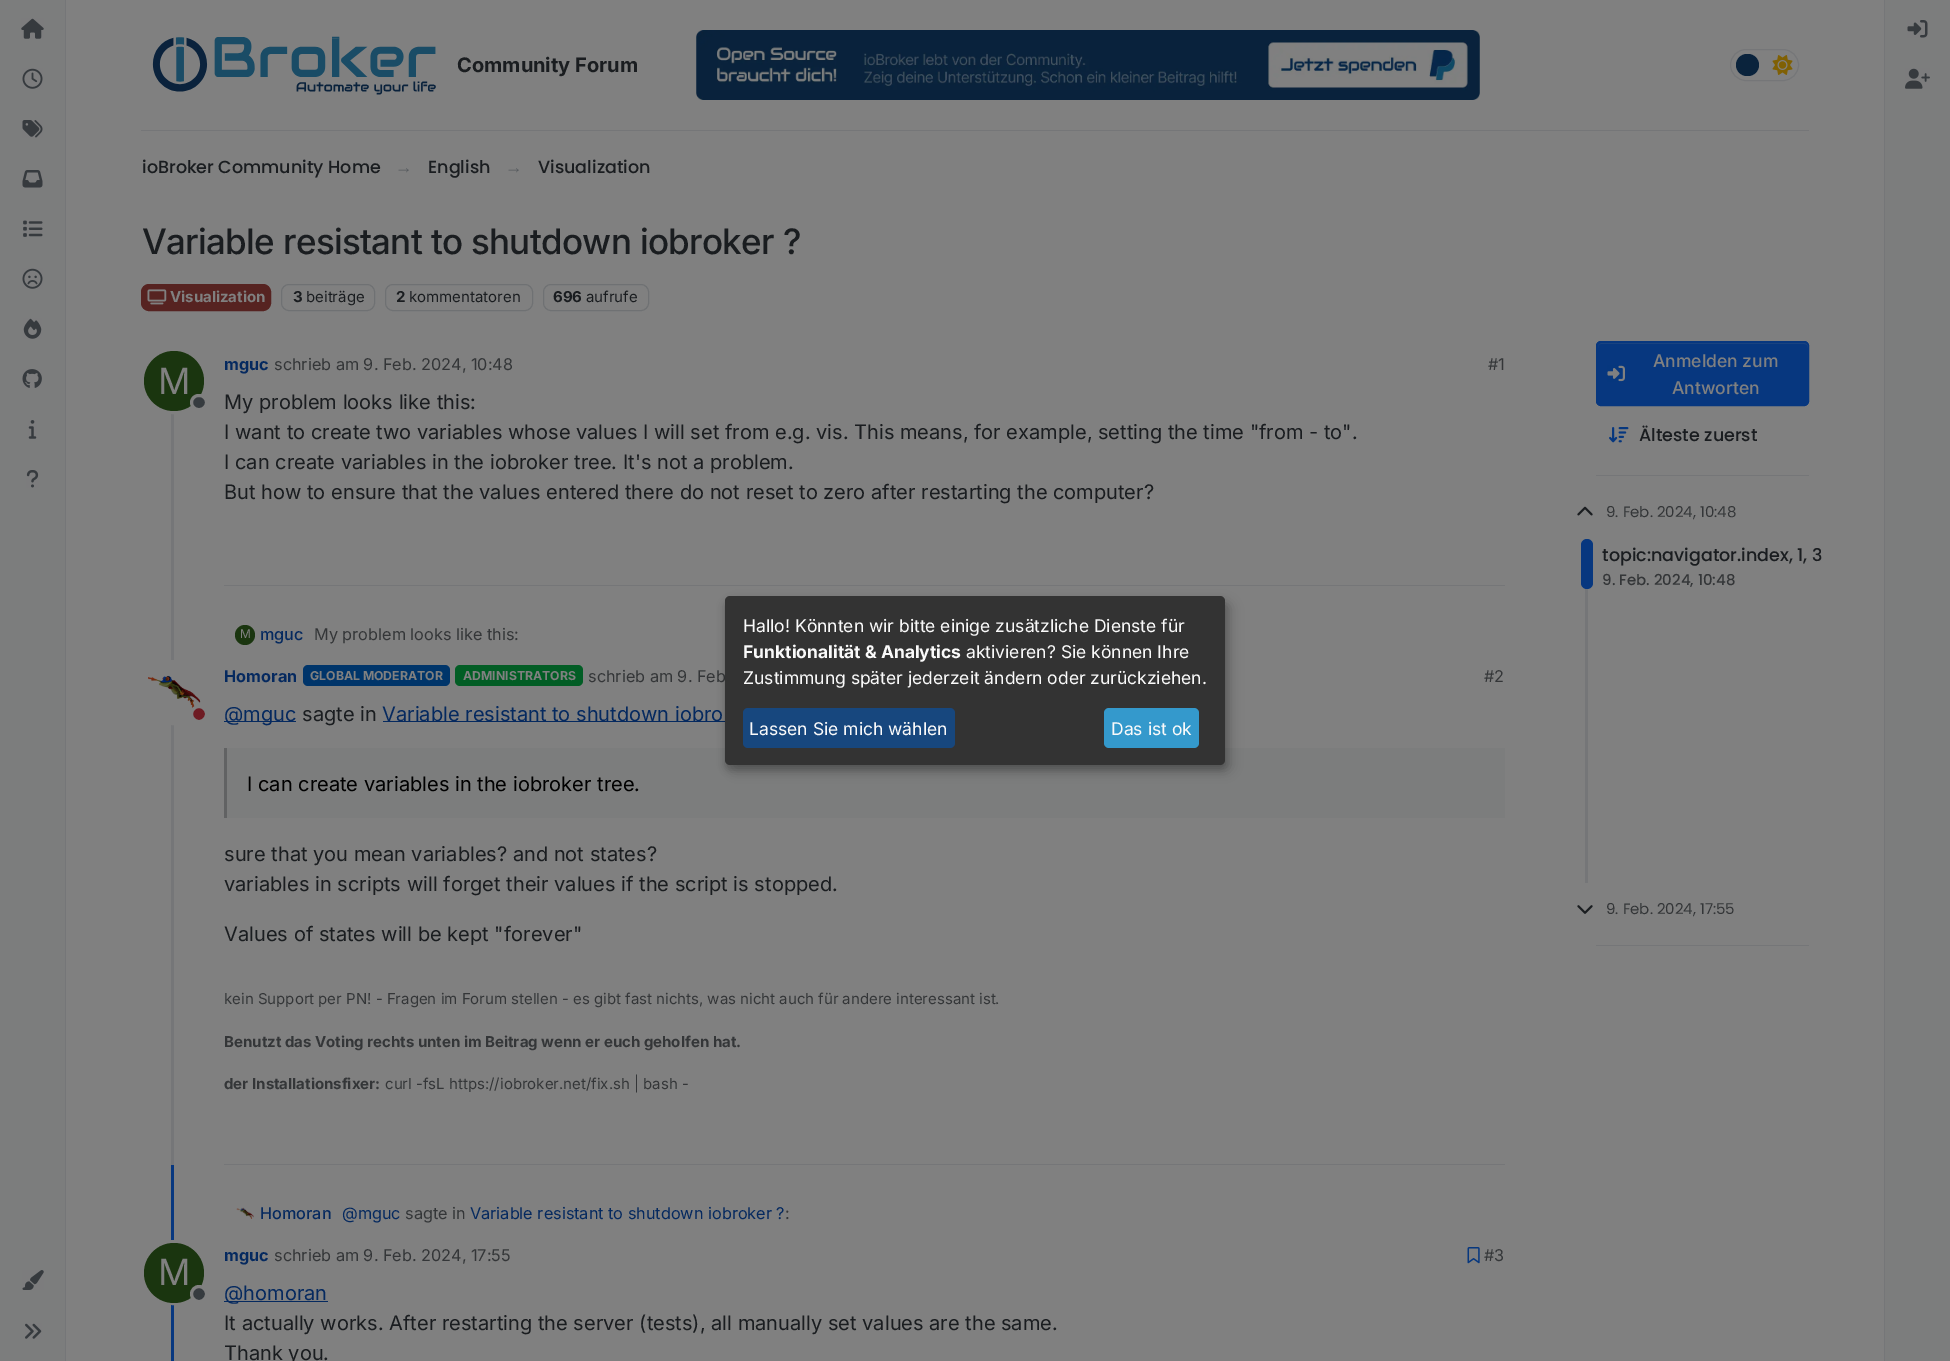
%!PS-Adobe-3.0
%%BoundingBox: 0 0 1950 1361
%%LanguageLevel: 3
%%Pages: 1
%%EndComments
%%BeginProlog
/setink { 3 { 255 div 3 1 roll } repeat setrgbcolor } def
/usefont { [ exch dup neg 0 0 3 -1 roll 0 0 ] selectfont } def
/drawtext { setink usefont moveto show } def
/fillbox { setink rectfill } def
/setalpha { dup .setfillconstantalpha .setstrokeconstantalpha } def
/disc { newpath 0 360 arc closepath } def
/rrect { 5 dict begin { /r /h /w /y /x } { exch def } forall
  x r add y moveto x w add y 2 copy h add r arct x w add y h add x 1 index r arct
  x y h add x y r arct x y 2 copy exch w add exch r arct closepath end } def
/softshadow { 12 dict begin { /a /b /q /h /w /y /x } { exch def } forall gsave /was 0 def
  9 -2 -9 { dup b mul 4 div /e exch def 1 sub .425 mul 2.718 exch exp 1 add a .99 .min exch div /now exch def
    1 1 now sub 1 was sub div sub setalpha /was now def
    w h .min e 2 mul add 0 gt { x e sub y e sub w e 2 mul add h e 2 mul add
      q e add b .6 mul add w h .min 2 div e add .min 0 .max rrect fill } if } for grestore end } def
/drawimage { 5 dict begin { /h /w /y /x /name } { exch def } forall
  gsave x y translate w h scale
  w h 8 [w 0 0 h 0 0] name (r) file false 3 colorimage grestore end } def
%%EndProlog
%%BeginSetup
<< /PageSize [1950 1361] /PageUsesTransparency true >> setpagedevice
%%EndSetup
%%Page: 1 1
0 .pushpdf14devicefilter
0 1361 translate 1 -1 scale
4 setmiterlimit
0 0 1950 1361 128 128 128 fillbox
0 0 65 1361 124 125 125 fillbox
65 0 1 1361 117 118 120 fillbox
(assets/img1.rgb) 21 18 23 21 drawimage
(assets/img2.rgb) 22 68 21 21 drawimage
(assets/img3.rgb) 22 120 21 18 drawimage
(assets/img4.rgb) 22 170 21 18 drawimage
(assets/img5.rgb) 23 220 20 17 drawimage
(assets/img6.rgb) 22 268 21 21 drawimage
(assets/img7.rgb) 23 318 19 21 drawimage
(assets/img8.rgb) 22 369 20 19 drawimage
(assets/img9.rgb) 28 420 9 19 drawimage
(assets/img10.rgb) 26 470 13 18 drawimage
(assets/img11.rgb) 22 1270 22 20 drawimage
(assets/img12.rgb) 25 1323 17 16 drawimage
141 130 1668 1 117 118 120 fillbox
(assets/img13.rgb) 152 36 284 59 drawimage
(Community Forum) 457 72 /Inter-Bold 20 26 29 32 drawtext
(assets/img14.rgb) 696 30 784 70 drawimage
117 118 120 setink
1730.5 49.5 68 31 15.5 rrect stroke
10 35 60 setink
1736 54 23 22 11 rrect fill
(assets/img15.rgb) 1772 55 21 20 drawimage
(ioBroker Community Home) 142 173 /Poppins-Medium 17.5 26 29 32 drawtext
(→) 395 173 /LiberationSans-Regular 17.5 87 91 95 drawtext
(English) 428 173 /Poppins-Medium 17.5 26 29 32 drawtext
(→) 505 173 /LiberationSans-Regular 17.5 87 91 95 drawtext
(Visualization) 538 173 /Poppins-Medium 17.5 26 29 32 drawtext
/Inter-Medium 35 usefont
142 254 moveto -0.7 0 (Variable resistant to shutdown iobroker ?) ashow
86 35 33 setink
141.5 284.5 129 26 7.5 rrect gsave fill grestore
stroke
(assets/img16.rgb) 147 289 20 16 drawimage
(Visualization) 170 302 /Inter-Bold 15 128 128 128 drawtext
111 113 115 setink
281.5 284.5 93 26 7.5 rrect stroke
(3) 293 302 /Inter-Bold 15 26 29 32 drawtext
(beiträge) 306 302 /Inter-Regular 15 26 29 32 drawtext
111 113 115 setink
385.5 284.5 147 26 7.5 rrect stroke
(2) 396 302 /Inter-Bold 15 26 29 32 drawtext
(kommentatoren) 409 302 /Inter-Regular 15 26 29 32 drawtext
111 113 115 setink
543.5 284.5 105 26 7.5 rrect stroke
(696) 553 302 /Inter-Bold 15 26 29 32 drawtext
(aufrufe) 586 302 /Inter-Regular 15 26 29 32 drawtext
171 410 3 755 117 118 120 fillbox
128 128 128 setink
3 setlinewidth
173.5 381.5 31 disc stroke
26 53 15 setink
174 381 30 disc fill
(M) 158 394 /Inter-Regular 36 128 128 128 drawtext
54 59 63 setink
191.5 395.5 15 14 7 rrect gsave fill grestore
128 128 128 setink
stroke
(mguc) 224 370 /Inter-Bold 16.25 5 41 95 drawtext
(schrieb am 9. Feb. 2024, 10:48) 274 370 /Inter-Regular 16.25 52 54 56 drawtext
(#1) 1488 370 /Inter-Regular 16.25 52 54 56 drawtext
(My problem looks like this:) 224 409 /Inter-Regular 20 26 29 32 drawtext
(I want to create two variables whose values I will set from e.g. vis. This means, for example, setting the time "from - to".) 224 439 /Inter-Regular 20 26 29 32 drawtext
(I can create variables in the iobroker tree. It's not a problem.) 224 469 /Inter-Regular 20 26 29 32 drawtext
(But how to ensure that the values entered there do not reset to zero after restarting the computer?) 224 499 /Inter-Regular 20 26 29 32 drawtext
224 585 1281 1 117 118 120 fillbox
26 53 15 setink
245 635 10 disc fill
(M) 240 638 /Inter-Regular 12 128 128 128 drawtext
(mguc) 260 640 /Inter-Medium 16.25 5 41 95 drawtext
(My problem looks like this:) 314 640 /Inter-Regular 16.25 52 54 56 drawtext
128 128 128 setink
173.5 692.5 31 disc gsave fill grestore
stroke
(assets/img17.rgb) 148 675 53 34 drawimage
110 27 35 setink
199 714 7.5 disc gsave fill grestore
128 128 128 setink
stroke
(Homoran) 224 682 /Inter-Bold 16.25 5 41 95 drawtext
0 53 106 setink
303 665 147 21 5 rrect fill
(GLOBAL MODERATOR) 310 680 /Inter-Bold 12.25 128 128 128 drawtext
2 93 37 setink
455 665 128 21 5 rrect fill
(ADMINISTRATORS) 463 680 /Inter-Bold 12.25 128 128 128 drawtext
(schrieb am 9. Feb) 588 682 /Inter-Regular 16.25 52 54 56 drawtext
(#2) 1484 682 /Inter-Regular 16.25 52 54 56 drawtext
224 721 72 1 5 41 95 fillbox
(@mguc) 224 721 /Inter-Regular 20 5 41 95 drawtext
(sagte in) 302 721 /Inter-Regular 20 26 29 32 drawtext
383 721 342 1 5 41 95 fillbox
(Variable resistant to shutdown iobro) 382 721 /Inter-Regular 20 5 41 95 drawtext
227 748 1278 70 124 125 125 fillbox
224 748 3 70 97 98 99 fillbox
(I can create variables in the iobroker tree.) 247 791 /Inter-Regular 20 0 0 0 drawtext
(sure that you mean variables? and not states?) 224 861 /Inter-Regular 20 26 29 32 drawtext
(variables in scripts will forget their values if the script is stopped.) 224 891 /Inter-Regular 20 26 29 32 drawtext
(Values of states will be kept "forever") 224 941 /Inter-Regular 20 26 29 32 drawtext
224 1164 1281 1 117 118 120 fillbox
(kein Support per PN! - Fragen im Forum stellen - es gibt fast nichts, was nicht auch für andere interessant ist.) 224 1004 /Inter-Regular 15 52 54 56 drawtext
(Benutzt das Voting rechts unten im Beitrag wenn er euch geholfen hat.) 224 1047 /Inter-Bold 15 52 54 56 drawtext
(der Installationsfixer:) 224 1089 /Inter-Bold 15 52 54 56 drawtext
(curl -fsL https://iobroker.net/fix.sh | bash -) 385 1089 /Inter-Regular 15 52 54 56 drawtext
171 1165 3 196 7 55 127 fillbox
(assets/img18.rgb) 236 1207 18 12 drawimage
(Homoran) 260 1219 /Inter-Medium 16.25 5 41 95 drawtext
(@mguc) 342 1219 /Inter-Regular 16.25 5 41 95 drawtext
(sagte in) 405 1219 /Inter-Regular 16.25 52 54 56 drawtext
(Variable resistant to shutdown iobroker ?) 470 1219 /Inter-Regular 16.25 5 41 95 drawtext
(:) 785 1219 /Inter-Regular 16.25 52 54 56 drawtext
128 128 128 setink
173.5 1272.5 31 disc stroke
26 53 15 setink
174 1273 30 disc fill
(M) 158 1285 /Inter-Regular 36 128 128 128 drawtext
54 59 63 setink
199 1294 7.5 disc gsave fill grestore
128 128 128 setink
stroke
(mguc) 224 1261 /Inter-Bold 16.25 5 41 95 drawtext
(schrieb am 9. Feb. 2024, 17:55) 274 1261 /Inter-Regular 16.25 52 54 56 drawtext
(assets/img19.rgb) 1467 1247 13 17 drawimage
(#3) 1484 1261 /Inter-Regular 16.25 52 54 56 drawtext
224 1301 104 1 5 41 95 fillbox
(@homoran) 224 1300 /Inter-Regular 20 5 41 95 drawtext
(It actually works. After restarting the server \(tests\), all manually set values are the same.) 224 1330 /Inter-Regular 20 26 29 32 drawtext
(Thank you.) 224 1360 /Inter-Regular 20 26 29 32 drawtext
7 55 127 setink
1596 341 213 65 5 rrect fill
25 66 127 setink
1601 344 moveto 1804 344 lineto 1806 344 1808 345 1808 348 curveto 1808 347 lineto 1808 345 1806 343 1804 343 curveto 1602 343 lineto 1600 343 1598 345 1598 347 curveto 1598 348 lineto 1598 345 1599 344 1601 344 curveto closepath fill
7 55 127 setink
1 setlinewidth
1596.5 341.5 212 64 4.5 rrect stroke
(assets/img20.rgb) 1607 365 18 17 drawimage
(Anmelden zum) 1653 367 /Inter-Medium 17.5 128 128 128 drawtext
(Antworten) 1672 394 /Inter-Medium 17.5 128 128 128 drawtext
(assets/img21.rgb) 1609 427 20 16 drawimage
(Älteste zuerst) 1639 441 /Poppins-Medium 17.5 26 29 32 drawtext
1596 475 213 1 117 118 120 fillbox
(assets/img22.rgb) 1577 506 16 10 drawimage
(9. Feb. 2024, 10:48) 1606 517 /Poppins-Regular 15 52 54 56 drawtext
1585 539 3 344 117 118 120 fillbox
7 55 127 setink
1581 539 12 50 6 rrect fill
(topic:navigator.index, 1, 3) 1602 561 /Poppins-Medium 17.5 26 29 32 drawtext
(9. Feb. 2024, 10:48) 1602 585 /Poppins-Medium 15 52 54 56 drawtext
(assets/img23.rgb) 1577 905 16 9 drawimage
(9. Feb. 2024, 17:55) 1606 914 /Poppins-Regular 15 52 54 56 drawtext
1596 945 213 1 117 118 120 fillbox
1885 0 65 1361 124 125 125 fillbox
1884 0 1 1361 117 118 120 fillbox
(assets/img24.rgb) 1907 20 21 18 drawimage
(assets/img25.rgb) 1905 68 25 21 drawimage
0 0 0 setink
731 603 500 168 5 6 0.19 softshadow
725 601 500 169 5 4 0.2 softshadow
51 51 51 setink
725 596 500 169 5 rrect fill
(Hallo! Könnten wir bitte einige zusätzliche Dienste für) 743 632 /Inter-Regular 17.5 250 250 250 drawtext
(Funktionalität & Analytics) 743 658 /Inter-Bold 17.5 250 250 250 drawtext
(aktivieren? Sie können Ihre) 966 658 /Inter-Regular 17.5 250 250 250 drawtext
(Zustimmung später jederzeit ändern oder zurückziehen.) 743 684 /Inter-Regular 17.5 250 250 250 drawtext
23 71 126 setink
743 708 212 40 5 rrect fill
(Lassen Sie mich wählen) 749 735 /Inter-Regular 17.5 250 250 250 drawtext
52 153 204 setink
1104 708 95 40 5 rrect fill
(Das ist ok) 1111 735 /Inter-Regular 17.5 250 250 250 drawtext
.poppdf14devicefilter showpage
%%EOF
